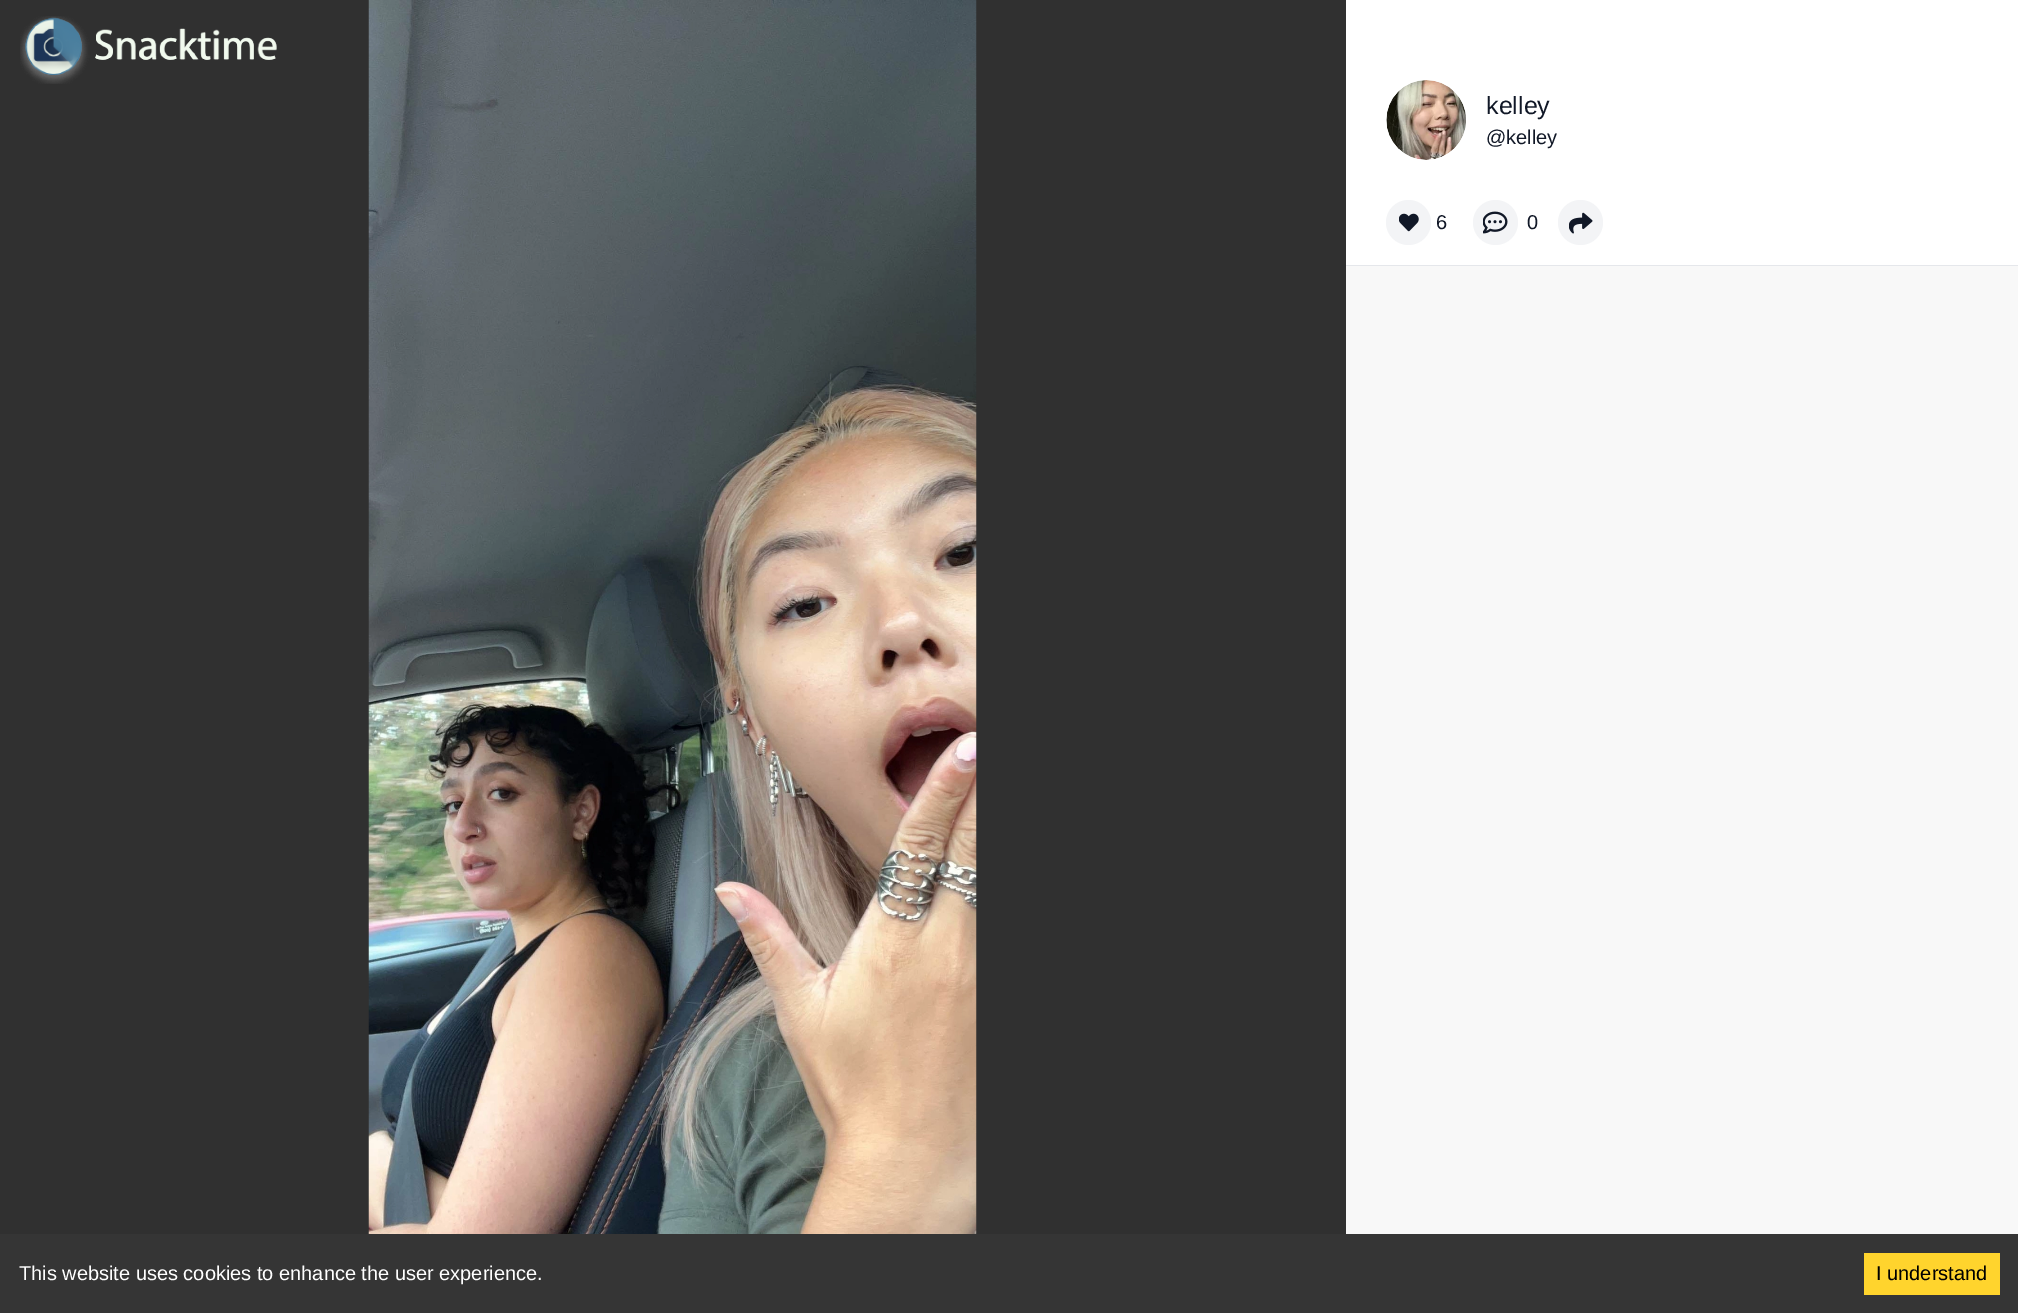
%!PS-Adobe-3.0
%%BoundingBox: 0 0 2018 1313
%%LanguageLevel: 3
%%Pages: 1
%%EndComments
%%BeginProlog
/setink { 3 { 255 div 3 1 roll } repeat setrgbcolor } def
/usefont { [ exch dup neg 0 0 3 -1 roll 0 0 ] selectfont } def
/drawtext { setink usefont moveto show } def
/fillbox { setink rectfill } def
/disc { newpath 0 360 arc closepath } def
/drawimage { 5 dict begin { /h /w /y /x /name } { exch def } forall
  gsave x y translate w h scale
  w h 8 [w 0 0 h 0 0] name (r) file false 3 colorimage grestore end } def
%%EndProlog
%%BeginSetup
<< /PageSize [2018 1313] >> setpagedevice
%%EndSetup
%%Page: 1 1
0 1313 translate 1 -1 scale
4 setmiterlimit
0 0 2018 1313 255 255 255 fillbox
0 0 1346 1234 48 48 48 fillbox
(assets/img1.rgb) 20 16 257 68 drawimage
(assets/img2.rgb) 20 16 257 68 drawimage
(assets/img3.rgb) 368 0 609 1234 drawimage
(assets/img4.rgb) 1386 80 80 80 drawimage
(kelley) 1486 114 /LiberationSans-Regular 25 17 24 39 drawtext
(@kelley) 1486 144 /LiberationSans-Regular 20 17 24 39 drawtext
243 244 246 setink
1408.5 222.5 22.5 disc fill
(assets/img5.rgb) 1399 213 20 19 drawimage
(6) 1436 229 /LiberationSans-Regular 20 17 24 39 drawtext
243 244 246 setink
1495.5 222.5 22.5 disc fill
(assets/img6.rgb) 1483 211 25 23 drawimage
(0) 1527 229 /LiberationSans-Regular 20 17 24 39 drawtext
243 244 246 setink
1580.5 222.5 22.5 disc fill
(assets/img7.rgb) 1569 212 24 22 drawimage
1346 266 672 968 248 248 248 fillbox
1346 265 672 1 229 231 235 fillbox
0 1234 2018 79 53 53 53 fillbox
(This website uses cookies to enhance the user experience.) 19 1280 /LiberationSans-Regular 20 255 255 255 drawtext
1864 1253 136 42 255 212 45 fillbox
(I understand) 1876 1280 /LiberationSans-Regular 20 0 0 0 drawtext
showpage
%%EOF
